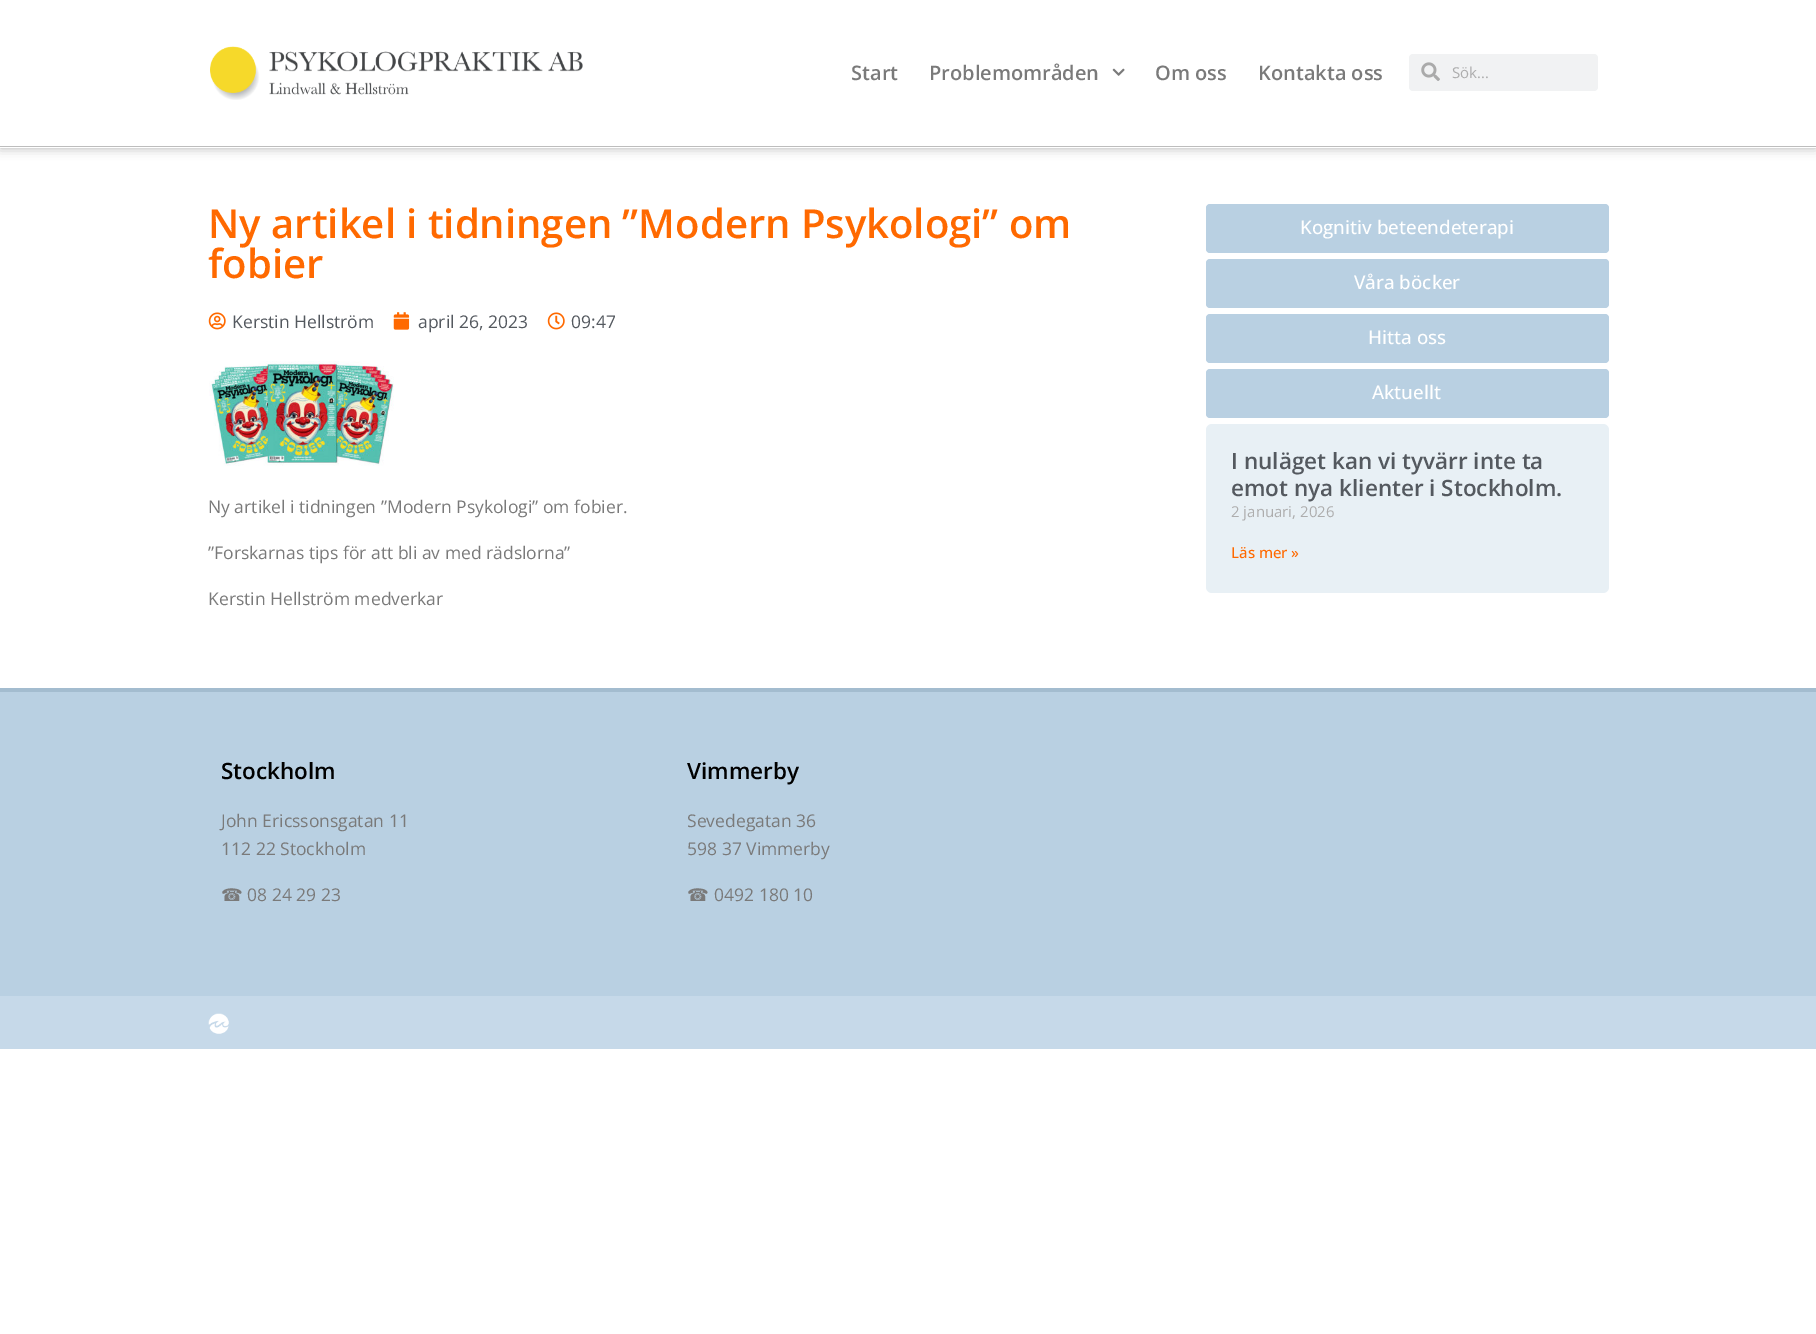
%!PS-Adobe-3.0
%%BoundingBox: 0 0 1816 1334
%%LanguageLevel: 3
%%Pages: 1
%%EndComments
%%BeginProlog
/setink { 3 { 255 div 3 1 roll } repeat setrgbcolor } def
/usefont { [ exch dup neg 0 0 3 -1 roll 0 0 ] selectfont } def
/drawtext { setink usefont moveto show } def
/fillbox { setink rectfill } def
/setalpha { dup .setfillconstantalpha .setstrokeconstantalpha } def
/rrect { 5 dict begin { /r /h /w /y /x } { exch def } forall
  x r add y moveto x w add y 2 copy h add r arct x w add y h add x 1 index r arct
  x y h add x y r arct x y 2 copy exch w add exch r arct closepath end } def
/softshadow { 12 dict begin { /a /b /q /h /w /y /x } { exch def } forall gsave /was 0 def
  9 -2 -9 { dup b mul 4 div /e exch def 1 sub .425 mul 2.718 exch exp 1 add a .99 .min exch div /now exch def
    1 1 now sub 1 was sub div sub setalpha /was now def
    w h .min e 2 mul add 0 gt { x e sub y e sub w e 2 mul add h e 2 mul add
      q e add b .6 mul add w h .min 2 div e add .min 0 .max rrect fill } if } for grestore end } def
/drawimage { 5 dict begin { /h /w /y /x /name } { exch def } forall
  gsave x y translate w h scale
  w h 8 [w 0 0 h 0 0] name (r) file false 3 colorimage grestore end } def
%%EndProlog
%%BeginSetup
<< /PageSize [1816 1334] /PageUsesTransparency true >> setpagedevice
%%EndSetup
%%Page: 1 1
0 .pushpdf14devicefilter
0 1334 translate 1 -1 scale
4 setmiterlimit
0 0 1816 1334 255 255 255 fillbox
gsave
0 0 moveto 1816 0 lineto 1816 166 lineto 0 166 lineto closepath 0 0 moveto 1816 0 lineto 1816 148 lineto 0 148 lineto closepath eoclip newpath
0 0 0 setink
0 0 1816 148 0 5.5 0.3 softshadow
grestore
0 146 1816 1 189 189 189 fillbox
(assets/img1.rgb) 210 46 373 54 drawimage
(Start) 851 80 /OpenSans-SemiBold 20 122 122 122 drawtext
(Problemområden) 929 80 /OpenSans-SemiBold 20 122 122 122 drawtext
(assets/img2.rgb) 1112 68 13 8 drawimage
(Om oss) 1155 80 /OpenSans-SemiBold 20 122 122 122 drawtext
(Kontakta oss) 1258 80 /OpenSans-SemiBold 20 122 122 122 drawtext
241 242 243 setink
1409 54 189 37 4 rrect fill
(assets/img3.rgb) 1421 62 19 19 drawimage
(Sök...) 1452 78 /OpenSans-Regular 15 173 173 173 drawtext
(Ny artikel i tidningen ”Modern Psykologi” om) 208 238 /OpenSans-SemiBold 40 255 105 0 drawtext
(fobier) 208 278 /OpenSans-SemiBold 40 255 105 0 drawtext
(assets/img4.rgb) 208 312 18 18 drawimage
(Kerstin Hellström) 232 328 /OpenSans-Regular 17.5 84 89 95 drawtext
(assets/img5.rgb) 393 312 17 18 drawimage
(april 26, 2023) 418 328 /OpenSans-Regular 17.5 84 89 95 drawtext
(assets/img6.rgb) 547 312 18 18 drawimage
(09:47) 571 328 /OpenSans-Regular 17.5 84 89 95 drawtext
(assets/img7.rgb) 209 361 185 105 drawimage
(Ny artikel i tidningen ”Modern Psykologi” om fobier.) 208 513 /OpenSans-Regular 17.5 122 122 122 drawtext
(”Forskarnas tips för att bli av med rädslorna”) 208 559 /OpenSans-Regular 17.5 122 122 122 drawtext
(Kerstin Hellström medverkar) 208 605 /OpenSans-Regular 17.5 122 122 122 drawtext
185 208 226 setink
1206 204 403 49 4 rrect fill
(Kognitiv beteendeterapi) 1300 234 /OpenSans-Medium 18.75 255 255 255 drawtext
185 208 226 setink
1206 259 403 49 4 rrect fill
(Våra böcker) 1354 289 /OpenSans-Medium 18.75 255 255 255 drawtext
185 208 226 setink
1206 314 403 49 4 rrect fill
(Hitta oss) 1368 344 /OpenSans-Medium 18.75 255 255 255 drawtext
185 208 226 setink
1206 369 403 49 4 rrect fill
(Aktuellt) 1372 399 /OpenSans-Medium 18.75 255 255 255 drawtext
232 240 245 setink
1206 424 403 169 6 rrect fill
(I nuläget kan vi tyvärr inte ta) 1231 469 /OpenSans-SemiBold 22.5 84 89 95 drawtext
(emot nya klienter i Stockholm.) 1231 496 /OpenSans-SemiBold 22.5 84 89 95 drawtext
(2 januari, 2026) 1231 517 /OpenSans-Regular 15 173 173 173 drawtext
(Läs mer ») 1231 558 /OpenSans-Medium 15 255 105 0 drawtext
0 692 1816 304 185 208 226 fillbox
0 688 1816 4 163 188 207 fillbox
(Stockholm) 221 779 /OpenSans-SemiBold 22.5 0 0 0 drawtext
(John Ericssonsgatan 11) 221 827 /OpenSans-Regular 17.5 122 122 122 drawtext
(112 22 Stockholm) 221 855 /OpenSans-Regular 17.5 122 122 122 drawtext
(☎) 221 901 /DejaVuSans-Regular 17.5 122 122 122 drawtext
(08 24 29 23) 247 901 /OpenSans-Regular 17.5 122 122 122 drawtext
(Vimmerby) 687 779 /OpenSans-SemiBold 22.5 0 0 0 drawtext
(Sevedegatan 36) 687 827 /OpenSans-Regular 17.5 122 122 122 drawtext
(598 37 Vimmerby) 687 855 /OpenSans-Regular 17.5 122 122 122 drawtext
(☎) 687 901 /DejaVuSans-Regular 17.5 122 122 122 drawtext
(0492 180 10) 714 901 /OpenSans-Regular 17.5 122 122 122 drawtext
0 996 1816 53 198 217 233 fillbox
(assets/img8.rgb) 208 1013 21 21 drawimage
.poppdf14devicefilter showpage
%%EOF
